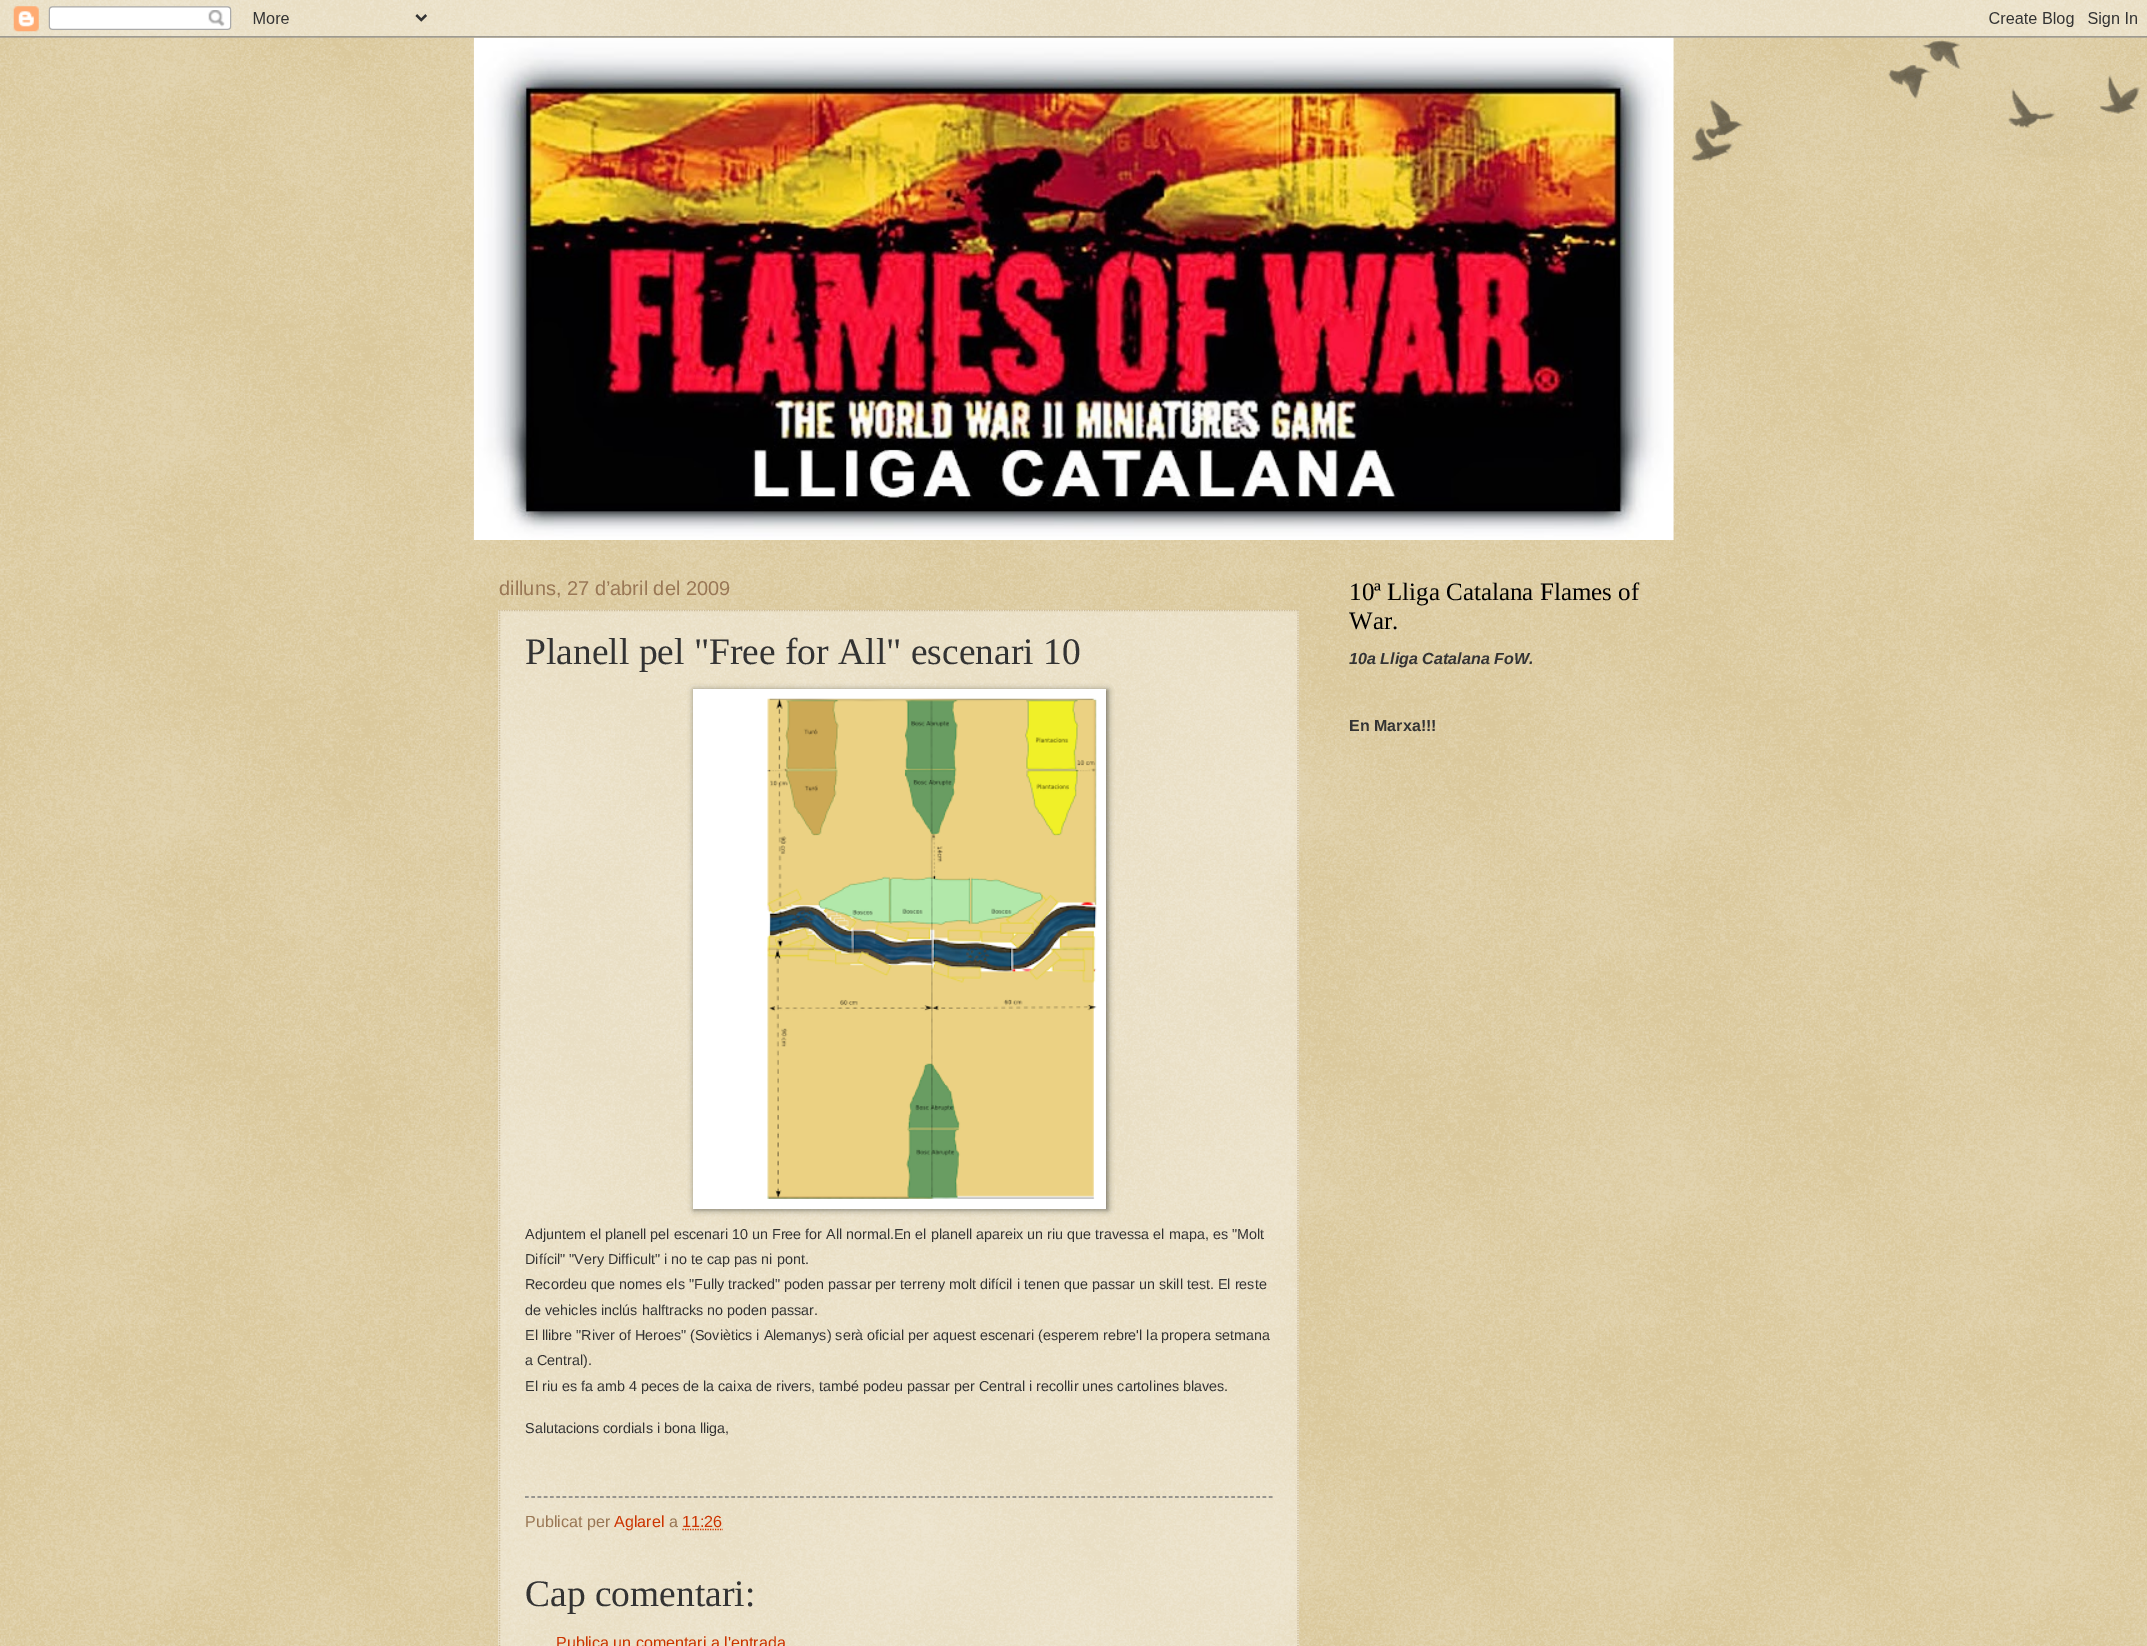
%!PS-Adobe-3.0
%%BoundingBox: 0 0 2147 1646
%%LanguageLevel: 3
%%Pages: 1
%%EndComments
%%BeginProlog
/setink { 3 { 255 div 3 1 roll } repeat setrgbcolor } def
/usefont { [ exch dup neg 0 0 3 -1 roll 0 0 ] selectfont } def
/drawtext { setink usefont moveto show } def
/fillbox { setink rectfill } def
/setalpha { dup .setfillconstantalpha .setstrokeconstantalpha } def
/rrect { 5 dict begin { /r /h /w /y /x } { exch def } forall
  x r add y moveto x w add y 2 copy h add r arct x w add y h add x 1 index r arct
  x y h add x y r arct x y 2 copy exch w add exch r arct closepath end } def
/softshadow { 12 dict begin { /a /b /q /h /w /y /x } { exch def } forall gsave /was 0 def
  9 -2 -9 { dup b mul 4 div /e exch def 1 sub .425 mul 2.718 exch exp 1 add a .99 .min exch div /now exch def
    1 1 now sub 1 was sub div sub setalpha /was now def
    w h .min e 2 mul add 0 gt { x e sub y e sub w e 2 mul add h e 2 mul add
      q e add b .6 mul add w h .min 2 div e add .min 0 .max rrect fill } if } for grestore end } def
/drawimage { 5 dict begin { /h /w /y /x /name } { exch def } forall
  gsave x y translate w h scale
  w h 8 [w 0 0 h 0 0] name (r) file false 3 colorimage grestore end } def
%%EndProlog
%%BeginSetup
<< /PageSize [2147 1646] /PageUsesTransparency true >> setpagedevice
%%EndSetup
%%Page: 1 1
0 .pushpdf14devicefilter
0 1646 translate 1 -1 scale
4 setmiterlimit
0 0 2147 1646 192 161 84 fillbox
(assets/img1.rgb) 0 0 2147 1646 drawimage
(assets/img4.rgb) 473 37 1201 503 drawimage
(assets/img2.rgb) 0 0 2147 38 drawimage
(assets/img3.rgb) 1691 40 450 122 drawimage
(dilluns, 27 d’abril del 2009) 499 595 /LiberationSans-Regular 20 153 119 85 drawtext
0.4 setalpha
498 610 801 1036 255 255 255 fillbox
1 setalpha
204 187 153 setink
1.2 setlinewidth
[1.25 1.25] 0 setdash
499 610.5 moveto 1299 610.5 lineto stroke
1298 610 moveto 1298 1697.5 lineto stroke
499.5 610 moveto 499.5 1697.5 lineto stroke
(Planell pel "Free for All" escenari 10) 525 664 /LiberationSerif-Regular 37.5 51 51 51 drawtext
0 0 0 setink
694 690 414 520 0 3 0.5 softshadow
693 689 413 520 255 255 255 fillbox
(assets/img5.rgb) 767 698 330 501 drawimage
(Adjuntem el planell pel escenari 10 un Free for All normal.En el planell apareix un riu que travessa el mapa, es "Molt) 525 1239 /LiberationSans-Regular 14.37 51 51 51 drawtext
(Difícil" "Very Difficult" i no te cap pas ni pont.) 525 1264 /LiberationSans-Regular 14.37 51 51 51 drawtext
(Recordeu que nomes els "Fully tracked" poden passar per terreny molt difícil i tenen que passar un skill test. El reste) 525 1289 /LiberationSans-Regular 14.37 51 51 51 drawtext
(de vehicles inclús halftracks no poden passar.) 525 1315 /LiberationSans-Regular 14.37 51 51 51 drawtext
(El llibre "River of Heroes" \(Soviètics i Alemanys\) serà oficial per aquest escenari \(esperem rebre'l la propera setmana) 525 1340 /LiberationSans-Regular 14.37 51 51 51 drawtext
(a Central\).) 525 1365 /LiberationSans-Regular 14.37 51 51 51 drawtext
(El riu es fa amb 4 peces de la caixa de rivers, també podeu passar per Central i recollir unes cartolines blaves.) 525 1391 /LiberationSans-Regular 14.37 51 51 51 drawtext
(Salutacions cordials i bona lliga,) 525 1433 /LiberationSans-Regular 14.37 51 51 51 drawtext
119 119 119 setink
[3.75 2.5] 0 setdash
525 1497 moveto 1272.5 1497 lineto stroke
(Publicat per) 525 1527 /LiberationSans-Regular 16.1 153 119 85 drawtext
(Aglarel) 614 1527 /LiberationSans-Regular 16.1 204 51 0 drawtext
(a) 669 1527 /LiberationSans-Regular 16.1 153 119 85 drawtext
(11:26) 682 1527 /LiberationSans-Regular 16.1 204 51 0 drawtext
[1.25 1.25] 0 setdash
682.5 1529.5 moveto 723 1529.5 lineto stroke
(Cap comentari:) 525 1606 /LiberationSerif-Regular 37.5 51 51 51 drawtext
(Publica un comentari a l'entrada) 556 1648 /LiberationSans-Regular 16.1 204 51 0 drawtext
(10ª Lliga Catalana Flames of) 1349 600 /LiberationSerif-Regular 25 0 0 0 drawtext
(War.) 1349 629 /LiberationSerif-Regular 25 0 0 0 drawtext
(10a Lliga Catalana FoW.) 1349 664 /LiberationSans-BoldItalic 16.1 51 51 51 drawtext
(En Marxa!!!) 1349 731 /LiberationSans-Bold 16.1 51 51 51 drawtext
.poppdf14devicefilter showpage
%%EOF
